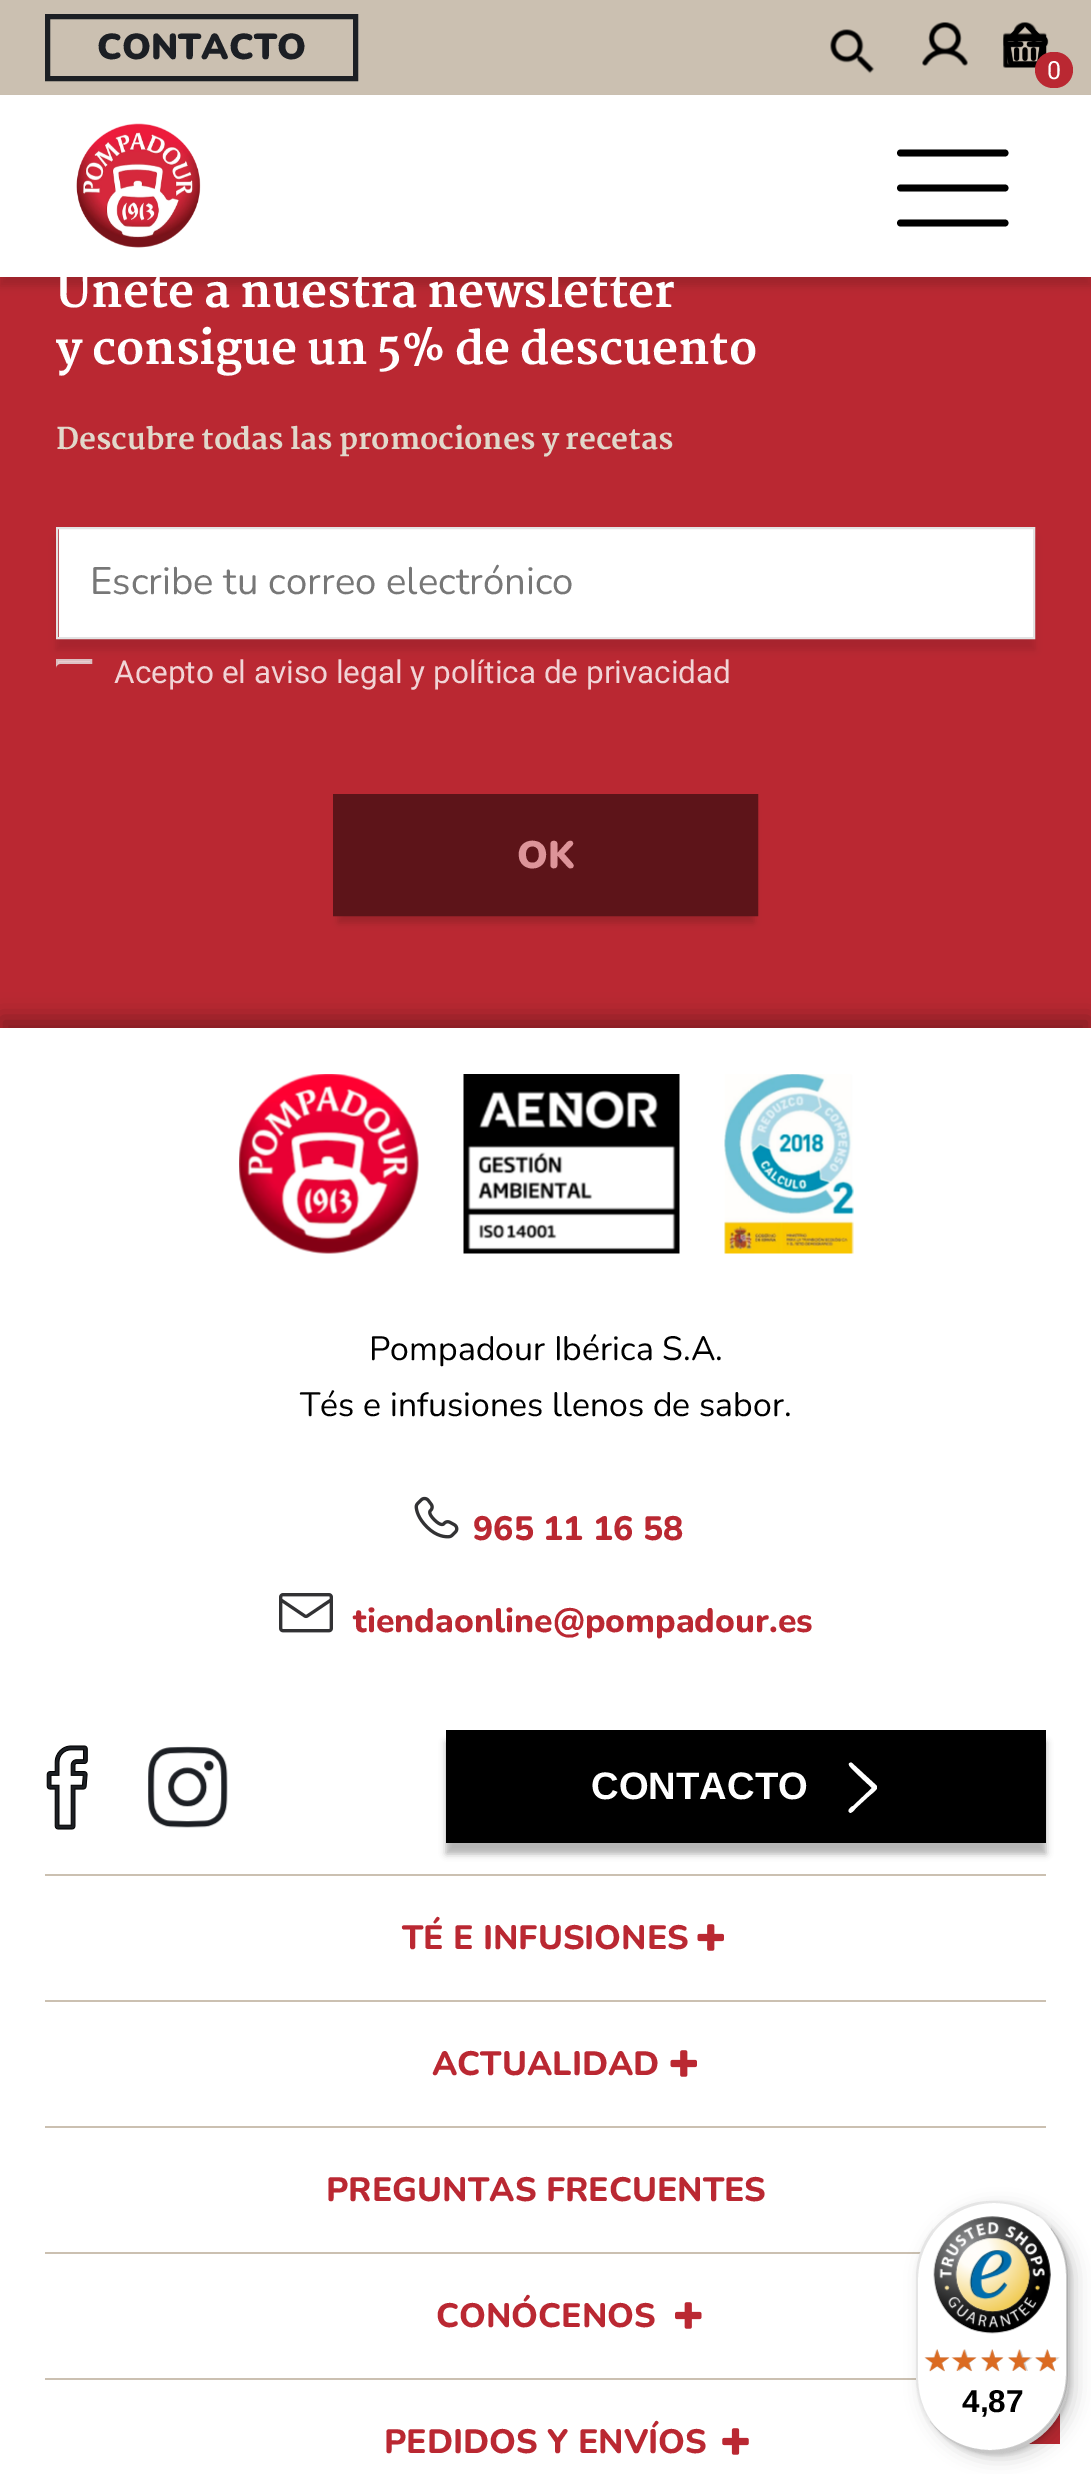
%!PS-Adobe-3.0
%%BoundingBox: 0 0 1091 2474
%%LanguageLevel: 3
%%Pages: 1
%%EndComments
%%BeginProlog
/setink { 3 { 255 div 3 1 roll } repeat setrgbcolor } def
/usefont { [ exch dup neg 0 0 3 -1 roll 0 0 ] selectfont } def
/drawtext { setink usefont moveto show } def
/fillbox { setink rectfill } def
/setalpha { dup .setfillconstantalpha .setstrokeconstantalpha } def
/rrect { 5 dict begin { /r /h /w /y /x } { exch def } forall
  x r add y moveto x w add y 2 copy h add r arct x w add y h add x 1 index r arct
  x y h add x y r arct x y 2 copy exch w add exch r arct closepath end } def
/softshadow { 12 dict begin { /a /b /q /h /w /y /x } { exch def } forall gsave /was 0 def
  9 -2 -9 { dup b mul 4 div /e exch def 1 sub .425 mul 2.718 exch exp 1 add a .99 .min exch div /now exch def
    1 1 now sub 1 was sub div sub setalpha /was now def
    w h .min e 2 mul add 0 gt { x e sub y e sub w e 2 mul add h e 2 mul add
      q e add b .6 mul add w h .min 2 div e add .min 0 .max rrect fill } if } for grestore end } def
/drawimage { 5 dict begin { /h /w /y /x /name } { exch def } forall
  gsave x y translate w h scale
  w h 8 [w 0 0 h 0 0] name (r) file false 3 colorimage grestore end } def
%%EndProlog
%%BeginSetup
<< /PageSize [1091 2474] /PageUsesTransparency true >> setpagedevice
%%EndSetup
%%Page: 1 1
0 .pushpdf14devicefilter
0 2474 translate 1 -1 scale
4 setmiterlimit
0 0 1091 2474 186 40 50 fillbox
0 0 1091 95 203 192 177 fillbox
28 31 36 setink
5 setlinewidth
47.5 16.5 308 62 rectstroke
(CONTACTO) 97 59 /Nunito-Black 36 28 31 36 drawtext
(assets/img1.rgb) 830 29 45 45 drawimage
(assets/img2.rgb) 922 22 46 44 drawimage
0 0 0 setink
0 104 1091 182 0 4.5 0.15 softshadow
0 95 1091 182 255 255 255 fillbox
(assets/img3.rgb) 1003 22 46 46 drawimage
(assets/img4.rgb) 1004 23 44 41 drawimage
186 40 50 setink
1035 52 38 36 18 rrect fill
(0) 1047 79 /Roboto-Regular 25 255 255 255 drawtext
(assets/img5.rgb) 76 123 125 125 drawimage
0 0 0 setink
6.8 setlinewidth
1 setlinecap
1 setlinejoin
900.5 153 moveto 1005 153 lineto 900.5 188 moveto 1005 188 lineto 900.5 223 moveto 1005 223 lineto stroke
(Únete a nuestra newsletter) 56 307 /Martel-ExtraBold 45 255 255 255 drawtext
(y consigue un 5% de descuento) 56 364 /Martel-ExtraBold 45 255 255 255 drawtext
(Descubre todas las promociones y recetas) 56 449 /Martel-ExtraBold 29.25 225 216 203 drawtext
0 0 0 setink
56 538 979 112 0 3.5 0.1 softshadow
59 529 974 108 255 255 255 fillbox
227 227 227 setink
2 setlinewidth
0 setlinecap
0 setlinejoin
57 528 977 110 rectstroke
(Escribe tu correo electrónico) 90 594 /Nunito-ExtraLight 38.25 119 119 119 drawtext
58 661 32 4 241 212 214 fillbox
59 662 31 2 223 194 196 fillbox
219 190 192 setink
57 660 34 34 rectstroke
(Acepto el aviso legal y política de privacidad) 114 683 /Roboto-Regular 31.5 241 212 214 drawtext
186 40 50 setink
57 665 55 54 4 rrect gsave fill grestore
stroke
93 20 25 setink
338 810 416 113 0 3.5 0.3 softshadow
338 799 415 112 93 20 25 fillbox
5 setlinewidth
335.5 796.5 420 117 rectstroke
(OK) 517 868 /Nunito-Black 38.25 221 148 153 drawtext
0 0 0 setink
0 1017 1091 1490 0 11 0.3 softshadow
0 1028 1091 1446 255 255 255 fillbox
(assets/img6.rgb) 239 1074 180 180 drawimage
(assets/img7.rgb) 463 1074 217 180 drawimage
(assets/img8.rgb) 724 1074 130 180 drawimage
(Pompadour Ibérica S.A.) 369 1360 /Nunito-ExtraLight 33.75 0 0 0 drawtext
(Tés e infusiones llenos de sabor.) 300 1416 /Nunito-ExtraLight 33.75 0 0 0 drawtext
(assets/img9.rgb) 414 1496 45 43 drawimage
(965 11 16 58) 473 1540 /Nunito-ExtraBold 33.75 186 40 50 drawtext
(assets/img10.rgb) 279 1593 54 40 drawimage
(tiendaonline@pompadour.es) 353 1632 /Nunito-ExtraBold 33.75 186 40 50 drawtext
(assets/img11.rgb) 46 1745 42 85 drawimage
(assets/img12.rgb) 148 1746 80 82 drawimage
0 0 0 setink
446 1742 600 112 0 3.5 0.3 softshadow
446 1730 600 113 0 0 0 fillbox
(CONTACTO) 591 1799 /LiberationSans-Bold 38.25 255 255 255 drawtext
877 1786 moveto 852 1763 lineto 851 1762 848 1763 849 1765 curveto 849 1767 869 1785 872 1788 curveto 853 1806 lineto 852 1806 847 1810 849 1812 curveto 851 1815 855 1809 856 1808 curveto 868 1797 lineto 870 1795 877 1790 877 1788 curveto closepath fill
45 1874 1001 2 203 192 177 fillbox
(TÉ E INFUSIONES) 402 1949 /Nunito-ExtraBold 33.75 186 40 50 drawtext
(assets/img13.rgb) 697 1924 27 27 drawimage
45 2000 1001 2 203 192 177 fillbox
(ACTUALIDAD) 432 2075 /Nunito-ExtraBold 33.75 186 40 50 drawtext
(assets/img13.rgb) 670 2050 27 27 drawimage
45 2126 1001 2 203 192 177 fillbox
(PREGUNTAS FRECUENTES) 326 2201 /Nunito-ExtraBold 33.75 186 40 50 drawtext
45 2252 876 2 203 192 177 fillbox
(CONÓCENOS) 436 2327 /Nunito-ExtraBold 33.75 186 40 50 drawtext
(assets/img14.rgb) 675 2302 27 27 drawimage
45 2378 872 2 203 192 177 fillbox
(PEDIDOS Y ENVÍOS) 384 2453 /Nunito-ExtraBold 33.75 186 40 50 drawtext
(assets/img15.rgb) 722 2428 27 27 drawimage
1028 2412 32 32 186 40 50 fillbox
0 0 0 setink
923 2207 153 252 76.5 9 0.15 softshadow
918 2203 153 252 76.5 2 0.15 softshadow
255 255 255 setink
916 2201 153 252 76.5 rrect fill
0.1 setalpha
0 0 0 setink
994 2203 moveto 1014 2203 1032 2210 1045 2222 curveto 1032 2209 1013 2201 992 2201 curveto 950 2201 916 2235 916 2278 curveto 916 2376 lineto 916 2399 926 2420 942 2434 curveto 927 2420 918 2400 918 2378 curveto 918 2279 lineto 918 2237 952 2203 994 2203 curveto closepath fill
0.2 setalpha
930 2421 moveto 944 2440 967 2453 992 2453 curveto 1035 2453 1069 2419 1069 2376 curveto 1069 2278 lineto 1069 2255 1059 2234 1043 2220 curveto 1057 2234 1066 2254 1066 2275 curveto 1066 2374 lineto 1066 2416 1032 2450 990 2450 curveto 966 2450 944 2439 930 2421 curveto closepath fill
50 50 50 setink
935 2427 moveto 949 2443 970 2453 992 2453 curveto 1035 2453 1069 2419 1069 2376 curveto 1069 2278 lineto 1069 2257 1061 2238 1048 2225 curveto 1060 2238 1067 2256 1067 2276 curveto 1067 2375 lineto 1067 2417 1033 2451 991 2451 curveto 969 2451 949 2442 935 2427 curveto closepath fill
0.3 setalpha
255 255 255 setink
927 2416 moveto 940 2438 965 2453 992 2453 curveto 1035 2453 1069 2419 1069 2376 curveto 1069 2278 lineto 1069 2259 1062 2242 1052 2229 curveto 1062 2242 1068 2258 1068 2276 curveto 1068 2375 lineto 1068 2417 1033 2451 991 2451 curveto 964 2451 940 2437 927 2416 curveto closepath fill
1 setalpha
(assets/img16.rgb) 933 2216 118 118 drawimage
(assets/img22.rgb) 925 2349 24 23 drawimage
(assets/img17.rgb) 924 2349 26 23 drawimage
(assets/img23.rgb) 954 2349 23 22 drawimage
(assets/img18.rgb) 951 2349 26 23 drawimage
(assets/img24.rgb) 981 2349 22 23 drawimage
(assets/img19.rgb) 980 2349 24 22 drawimage
(assets/img25.rgb) 1008 2349 25 22 drawimage
(assets/img20.rgb) 1007 2349 24 22 drawimage
(assets/img26.rgb) 1035 2349 25 23 drawimage
(assets/img21.rgb) 1034 2349 22 23 drawimage
(4,87) 962 2412 /LiberationSans-Bold 31.5 0 0 0 drawtext
.poppdf14devicefilter showpage
%%EOF
